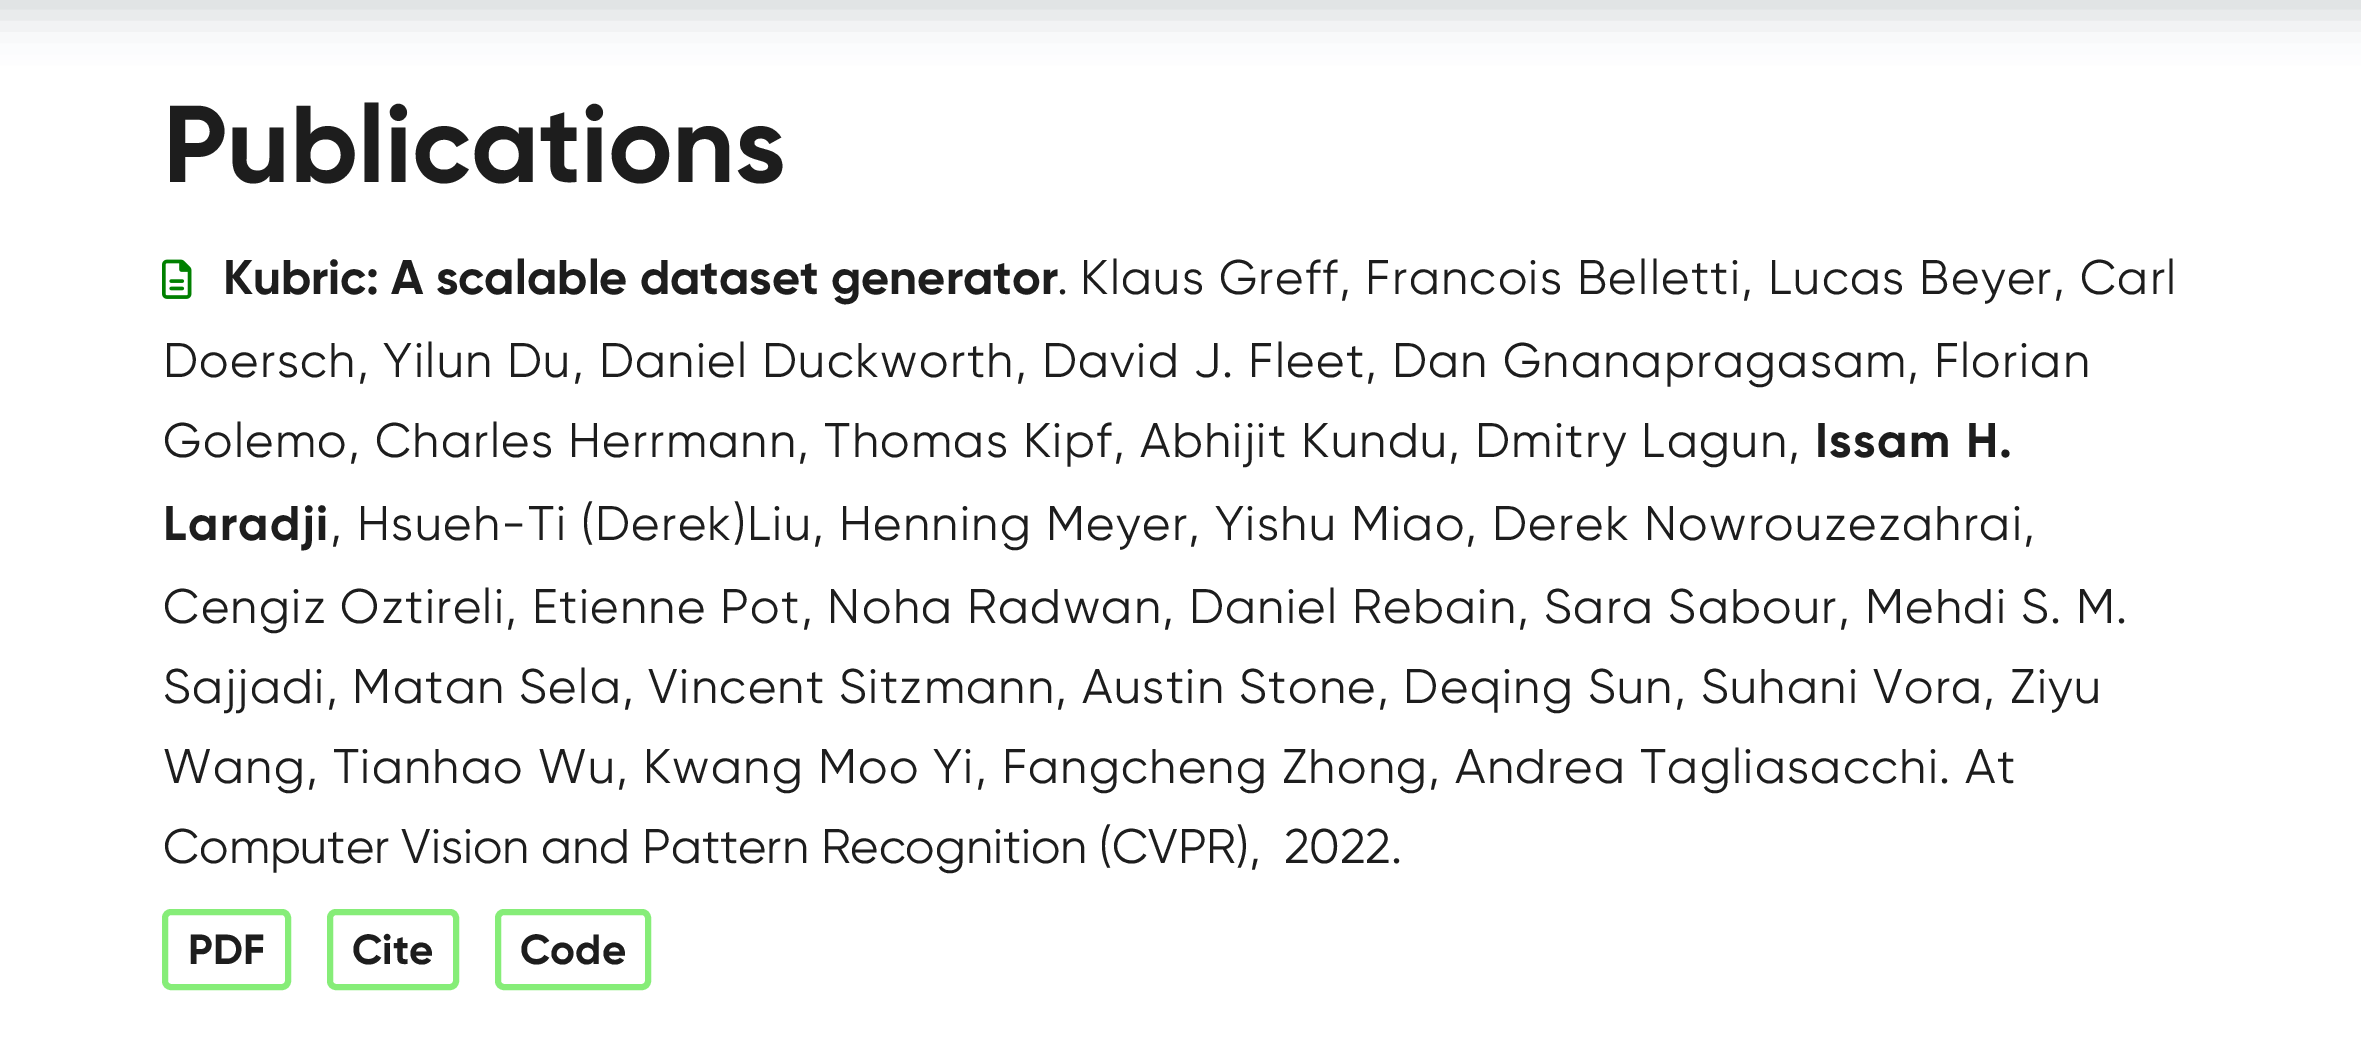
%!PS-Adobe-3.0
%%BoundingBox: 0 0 2361 1050
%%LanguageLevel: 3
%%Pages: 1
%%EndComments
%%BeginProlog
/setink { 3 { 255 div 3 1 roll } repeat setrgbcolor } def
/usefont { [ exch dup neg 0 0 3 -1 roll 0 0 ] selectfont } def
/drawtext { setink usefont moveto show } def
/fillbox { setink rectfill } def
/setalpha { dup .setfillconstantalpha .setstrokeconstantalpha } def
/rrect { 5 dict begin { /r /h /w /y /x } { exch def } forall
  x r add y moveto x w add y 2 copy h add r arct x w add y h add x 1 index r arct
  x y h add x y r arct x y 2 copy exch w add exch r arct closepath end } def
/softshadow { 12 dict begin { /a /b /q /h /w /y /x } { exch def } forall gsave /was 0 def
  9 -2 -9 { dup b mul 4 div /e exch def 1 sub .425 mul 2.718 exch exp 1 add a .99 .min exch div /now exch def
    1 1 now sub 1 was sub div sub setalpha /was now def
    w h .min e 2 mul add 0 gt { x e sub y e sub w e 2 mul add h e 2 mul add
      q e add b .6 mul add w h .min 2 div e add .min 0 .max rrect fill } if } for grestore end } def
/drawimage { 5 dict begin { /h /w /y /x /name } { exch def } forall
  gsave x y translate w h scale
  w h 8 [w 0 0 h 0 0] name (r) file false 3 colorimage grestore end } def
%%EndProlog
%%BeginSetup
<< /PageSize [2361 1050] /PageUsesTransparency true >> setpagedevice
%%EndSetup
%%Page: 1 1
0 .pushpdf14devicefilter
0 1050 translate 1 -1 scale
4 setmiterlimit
0 0 2361 1050 255 255 255 fillbox
41 62 64 setink
-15 -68 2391 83 0 22.5 0.2 softshadow
(Publications) 163 182 /Gilroy-Bold 109 29 29 29 drawtext
(assets/img1.rgb) 162 259 30 40 drawimage
(Kubric: A scalable dataset generator) 223 294 /Gilroy-Bold 48.5 29 29 29 drawtext
(.) 1057 294 /gilroy-Regular 48.5 29 29 29 drawtext
1080 294 moveto 1.45 0 (Klaus Greff, Francois Belletti, Lucas Beyer, Carl) ashow
163 377 moveto 1.45 0 (Doersch, Yilun Du, Daniel Duckworth) ashow
1015 377 moveto 1.45 0 (, David J. Fleet, Dan Gnanapragasam) ashow
1907 377 moveto 1.45 0 (, Florian) ashow
163 457 moveto 1.45 0 (Golemo, Charles Herrmann, Thomas Kipf, Abhijit Kundu, Dmitry Lagun,) ashow
/Gilroy-Bold 48.5 usefont
1815 457 moveto 1.45 0 (Issam H.) ashow
163 540 moveto 1.45 0 (Laradji) ashow
/gilroy-Regular 48.5 usefont
330 540 moveto 1.45 0 (, Hsueh-Ti \(Derek\)Liu) ashow
812 540 moveto 1.45 0 (, Henning Meyer, Yishu Miao, Derek Nowrouzezahrai) ashow
2023 540 moveto 1.45 0 (,) ashow
163 623 moveto 1.45 0 (Cengiz Oztireli, Etienne Pot, Noha Radwan, Daniel Rebain, Sara Sabour, Mehdi S. M.) ashow
163 703 moveto 1.45 0 (Sajjadi, Matan Sela, Vincent Sitzmann) ashow
1055 703 moveto 1.45 0 (, Austin Stone, Deqing Sun, Suhani Vora, Ziyu) ashow
163 783 moveto 1.45 0 (Wang, Tianhao Wu, Kwang Moo Yi, Fangcheng Zhong) ashow
1428 783 moveto 1.45 0 (, Andrea Tagliasacchi) ashow
1939 783 moveto 1.45 0 (. At) ashow
(Computer Vision and Pattern Recognition \(CVPR\),) 163 863 /gilroy-Regular 48.5 29 29 29 drawtext
(2022.) 1284 863 /gilroy-Regular 48.5 29 29 29 drawtext
134 237 120 setink
6 setlinewidth
165 912 123 75 6 rrect stroke
(PDF) 188 964 /Gilroy-Bold 42 29 29 29 drawtext
134 237 120 setink
330 912 126 75 6 rrect stroke
(Cite) 352 964 /Gilroy-Bold 42 29 29 29 drawtext
134 237 120 setink
498 912 150 75 6 rrect stroke
(Code) 520 964 /Gilroy-Bold 42 29 29 29 drawtext
.poppdf14devicefilter showpage
%%EOF
